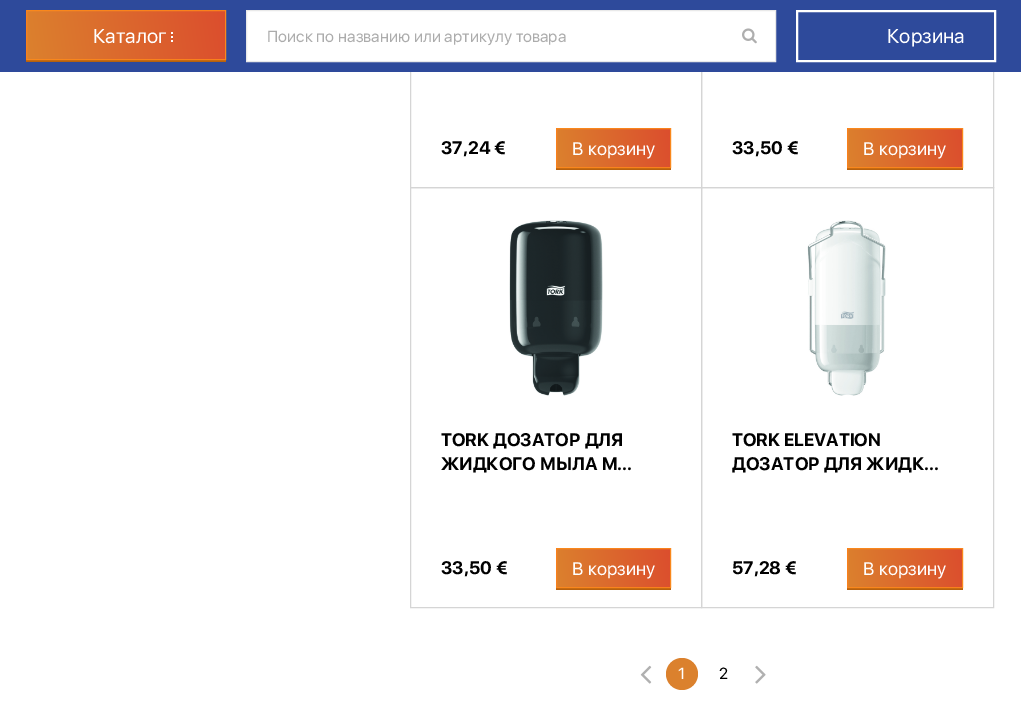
%!PS-Adobe-3.0
%%BoundingBox: 0 0 1021 728
%%LanguageLevel: 3
%%Pages: 1
%%EndComments
%%BeginProlog
/setink { 3 { 255 div 3 1 roll } repeat setrgbcolor } def
/usefont { [ exch dup neg 0 0 3 -1 roll 0 0 ] selectfont } def
/drawtext { setink usefont moveto show } def
/fillbox { setink rectfill } def
/setalpha { dup .setfillconstantalpha .setstrokeconstantalpha } def
/disc { newpath 0 360 arc closepath } def
/drawimage { 5 dict begin { /h /w /y /x /name } { exch def } forall
  gsave x y translate w h scale
  w h 8 [w 0 0 h 0 0] name (r) file false 3 colorimage grestore end } def
%%EndProlog
%%BeginSetup
<< /PageSize [1021 728] /PageUsesTransparency true >> setpagedevice
%%EndSetup
%%Page: 1 1
0 .pushpdf14devicefilter
0 728 translate 1 -1 scale
4 setmiterlimit
0 0 1021 728 255 255 255 fillbox
213 213 213 setink
410.5 -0.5 291 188 rectstroke
701.5 -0.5 292 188 rectstroke
0 0 1021 72 46 74 155 fillbox
26 60 200 2 183 97 14 fillbox
225 10 1 1 219 129 45 fillbox
gsave 26 10 moveto 27 10 lineto 27 11 lineto 26 11 lineto closepath clip newpath
<< /ShadingType 2 /ColorSpace /DeviceRGB /Coords [28 -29 -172 2.9] /Extend [true true] /Function << /FunctionType 2 /Domain [0 1] /C0 [0.859 0.306 0.176] /C1 [0.859 0.506 0.176] /N 1 >> >> shfill grestore
gsave 27 10 moveto 225 10 lineto 225 11 lineto 27 11 lineto closepath clip newpath
<< /ShadingType 2 /ColorSpace /DeviceRGB /Coords [226 -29 26 2.9] /Extend [true true] /Function << /FunctionType 2 /Domain [0 1] /C0 [0.859 0.306 0.176] /C1 [0.859 0.506 0.176] /N 1 >> >> shfill grestore
gsave 26 11 moveto 27 11 lineto 27 59 lineto 26 59 lineto closepath clip newpath
<< /ShadingType 2 /ColorSpace /DeviceRGB /Coords [28 19 -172 51] /Extend [true true] /Function << /FunctionType 2 /Domain [0 1] /C0 [0.859 0.306 0.176] /C1 [0.859 0.506 0.176] /N 1 >> >> shfill grestore
gsave 27 11 moveto 225 11 lineto 225 59 lineto 27 59 lineto closepath clip newpath
<< /ShadingType 2 /ColorSpace /DeviceRGB /Coords [226 19 26 51] /Extend [true true] /Function << /FunctionType 2 /Domain [0 1] /C0 [0.859 0.306 0.176] /C1 [0.859 0.506 0.176] /N 1 >> >> shfill grestore
gsave 225 11 moveto 226 11 lineto 226 59 lineto 225 59 lineto closepath clip newpath
<< /ShadingType 2 /ColorSpace /DeviceRGB /Coords [424 19 224 51] /Extend [true true] /Function << /FunctionType 2 /Domain [0 1] /C0 [0.859 0.306 0.176] /C1 [0.859 0.506 0.176] /N 1 >> >> shfill grestore
gsave 26 59 moveto 27 59 lineto 27 60 lineto 26 60 lineto closepath clip newpath
<< /ShadingType 2 /ColorSpace /DeviceRGB /Coords [28 67 -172 99] /Extend [true true] /Function << /FunctionType 2 /Domain [0 1] /C0 [0.859 0.306 0.176] /C1 [0.859 0.506 0.176] /N 1 >> >> shfill grestore
gsave 27 59 moveto 225 59 lineto 225 60 lineto 27 60 lineto closepath clip newpath
<< /ShadingType 2 /ColorSpace /DeviceRGB /Coords [226 67 26 99] /Extend [true true] /Function << /FunctionType 2 /Domain [0 1] /C0 [0.859 0.306 0.176] /C1 [0.859 0.506 0.176] /N 1 >> >> shfill grestore
gsave 225 59 moveto 226 59 lineto 226 60 lineto 225 60 lineto closepath clip newpath
<< /ShadingType 2 /ColorSpace /DeviceRGB /Coords [424 67 224 99] /Extend [true true] /Function << /FunctionType 2 /Domain [0 1] /C0 [0.859 0.306 0.176] /C1 [0.859 0.506 0.176] /N 1 >> >> shfill grestore
0.83 setalpha
255 138 25 setink
26.5 10.5 199 49 rectstroke
1 setalpha
(Каталог) 93 43 /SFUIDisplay-Regular 20 255 255 255 drawtext
(assets/img1.rgb) 171 32 2 10 drawimage
246.5 10.5 moveto 775.5 10.5 lineto 775.5 61.5 lineto 246.5 61.5 lineto closepath gsave fill grestore
233 233 233 setink
stroke
(Поиск по названию или артикулу товара) 267 42 /SFUIDisplay-Regular 16 172 172 172 drawtext
(assets/img2.rgb) 742 28 15 16 drawimage
255 255 255 setink
2 setlinewidth
797 11 198 50 rectstroke
(Корзина) 887 43 /SFUIDisplay-Regular 20 255 255 255 drawtext
(37,24 €) 441 154 /SFUIDisplay-Bold 18 0 0 0 drawtext
556 168 115 2 183 97 14 fillbox
670 128 1 1 219 129 45 fillbox
gsave 556 128 moveto 557 128 lineto 557 129 lineto 556 129 lineto closepath clip newpath
<< /ShadingType 2 /ColorSpace /DeviceRGB /Coords [559 101 442 119] /Extend [true true] /Function << /FunctionType 2 /Domain [0 1] /C0 [0.859 0.306 0.176] /C1 [0.859 0.506 0.176] /N 1 >> >> shfill grestore
gsave 557 128 moveto 670 128 lineto 670 129 lineto 557 129 lineto closepath clip newpath
<< /ShadingType 2 /ColorSpace /DeviceRGB /Coords [672 101 555 119] /Extend [true true] /Function << /FunctionType 2 /Domain [0 1] /C0 [0.859 0.306 0.176] /C1 [0.859 0.506 0.176] /N 1 >> >> shfill grestore
gsave 556 129 moveto 557 129 lineto 557 167 lineto 556 167 lineto closepath clip newpath
<< /ShadingType 2 /ColorSpace /DeviceRGB /Coords [559 139 442 157] /Extend [true true] /Function << /FunctionType 2 /Domain [0 1] /C0 [0.859 0.306 0.176] /C1 [0.859 0.506 0.176] /N 1 >> >> shfill grestore
gsave 557 129 moveto 670 129 lineto 670 167 lineto 557 167 lineto closepath clip newpath
<< /ShadingType 2 /ColorSpace /DeviceRGB /Coords [672 139 555 157] /Extend [true true] /Function << /FunctionType 2 /Domain [0 1] /C0 [0.859 0.306 0.176] /C1 [0.859 0.506 0.176] /N 1 >> >> shfill grestore
gsave 670 129 moveto 671 129 lineto 671 167 lineto 670 167 lineto closepath clip newpath
<< /ShadingType 2 /ColorSpace /DeviceRGB /Coords [785 139 668 157] /Extend [true true] /Function << /FunctionType 2 /Domain [0 1] /C0 [0.859 0.306 0.176] /C1 [0.859 0.506 0.176] /N 1 >> >> shfill grestore
gsave 556 167 moveto 557 167 lineto 557 168 lineto 556 168 lineto closepath clip newpath
<< /ShadingType 2 /ColorSpace /DeviceRGB /Coords [559 177 442 195] /Extend [true true] /Function << /FunctionType 2 /Domain [0 1] /C0 [0.859 0.306 0.176] /C1 [0.859 0.506 0.176] /N 1 >> >> shfill grestore
gsave 557 167 moveto 670 167 lineto 670 168 lineto 557 168 lineto closepath clip newpath
<< /ShadingType 2 /ColorSpace /DeviceRGB /Coords [672 177 555 195] /Extend [true true] /Function << /FunctionType 2 /Domain [0 1] /C0 [0.859 0.306 0.176] /C1 [0.859 0.506 0.176] /N 1 >> >> shfill grestore
gsave 670 167 moveto 671 167 lineto 671 168 lineto 670 168 lineto closepath clip newpath
<< /ShadingType 2 /ColorSpace /DeviceRGB /Coords [785 177 668 195] /Extend [true true] /Function << /FunctionType 2 /Domain [0 1] /C0 [0.859 0.306 0.176] /C1 [0.859 0.506 0.176] /N 1 >> >> shfill grestore
0.83 setalpha
255 138 25 setink
1 setlinewidth
556.5 128.5 114 39 rectstroke
1 setalpha
(В корзину) 572 155 /SFUIDisplay-Regular 18 255 255 255 drawtext
(33,50 €) 732 154 /SFUIDisplay-Bold 18 0 0 0 drawtext
847 168 116 2 183 97 14 fillbox
962 128 1 1 219 129 45 fillbox
gsave 847 128 moveto 848 128 lineto 848 129 lineto 847 129 lineto closepath clip newpath
<< /ShadingType 2 /ColorSpace /DeviceRGB /Coords [850 101 732 119] /Extend [true true] /Function << /FunctionType 2 /Domain [0 1] /C0 [0.859 0.306 0.176] /C1 [0.859 0.506 0.176] /N 1 >> >> shfill grestore
gsave 848 128 moveto 962 128 lineto 962 129 lineto 848 129 lineto closepath clip newpath
<< /ShadingType 2 /ColorSpace /DeviceRGB /Coords [964 101 846 119] /Extend [true true] /Function << /FunctionType 2 /Domain [0 1] /C0 [0.859 0.306 0.176] /C1 [0.859 0.506 0.176] /N 1 >> >> shfill grestore
gsave 847 129 moveto 848 129 lineto 848 167 lineto 847 167 lineto closepath clip newpath
<< /ShadingType 2 /ColorSpace /DeviceRGB /Coords [850 139 732 157] /Extend [true true] /Function << /FunctionType 2 /Domain [0 1] /C0 [0.859 0.306 0.176] /C1 [0.859 0.506 0.176] /N 1 >> >> shfill grestore
gsave 848 129 moveto 962 129 lineto 962 167 lineto 848 167 lineto closepath clip newpath
<< /ShadingType 2 /ColorSpace /DeviceRGB /Coords [964 139 846 157] /Extend [true true] /Function << /FunctionType 2 /Domain [0 1] /C0 [0.859 0.306 0.176] /C1 [0.859 0.506 0.176] /N 1 >> >> shfill grestore
gsave 962 129 moveto 963 129 lineto 963 167 lineto 962 167 lineto closepath clip newpath
<< /ShadingType 2 /ColorSpace /DeviceRGB /Coords [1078 139 960 157] /Extend [true true] /Function << /FunctionType 2 /Domain [0 1] /C0 [0.859 0.306 0.176] /C1 [0.859 0.506 0.176] /N 1 >> >> shfill grestore
gsave 847 167 moveto 848 167 lineto 848 168 lineto 847 168 lineto closepath clip newpath
<< /ShadingType 2 /ColorSpace /DeviceRGB /Coords [850 177 732 195] /Extend [true true] /Function << /FunctionType 2 /Domain [0 1] /C0 [0.859 0.306 0.176] /C1 [0.859 0.506 0.176] /N 1 >> >> shfill grestore
gsave 848 167 moveto 962 167 lineto 962 168 lineto 848 168 lineto closepath clip newpath
<< /ShadingType 2 /ColorSpace /DeviceRGB /Coords [964 177 846 195] /Extend [true true] /Function << /FunctionType 2 /Domain [0 1] /C0 [0.859 0.306 0.176] /C1 [0.859 0.506 0.176] /N 1 >> >> shfill grestore
gsave 962 167 moveto 963 167 lineto 963 168 lineto 962 168 lineto closepath clip newpath
<< /ShadingType 2 /ColorSpace /DeviceRGB /Coords [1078 177 960 195] /Extend [true true] /Function << /FunctionType 2 /Domain [0 1] /C0 [0.859 0.306 0.176] /C1 [0.859 0.506 0.176] /N 1 >> >> shfill grestore
0.83 setalpha
255 138 25 setink
847.5 128.5 115 39 rectstroke
1 setalpha
(В корзину) 863 155 /SFUIDisplay-Regular 18 255 255 255 drawtext
213 213 213 setink
410.5 187.5 291 420 rectstroke
(assets/img3.rgb) 509 220 94 176 drawimage
(TORK ДОЗАТОР ДЛЯ) 441 446 /SFUIDisplay-Bold 18 0 0 0 drawtext
(ЖИДКОГО МЫЛА M...) 441 470 /SFUIDisplay-Bold 18 0 0 0 drawtext
(33,50 €) 441 574 /SFUIDisplay-Bold 18 0 0 0 drawtext
556 588 115 2 183 97 14 fillbox
670 548 1 1 219 129 45 fillbox
gsave 556 548 moveto 557 548 lineto 557 549 lineto 556 549 lineto closepath clip newpath
<< /ShadingType 2 /ColorSpace /DeviceRGB /Coords [559 521 442 539] /Extend [true true] /Function << /FunctionType 2 /Domain [0 1] /C0 [0.859 0.306 0.176] /C1 [0.859 0.506 0.176] /N 1 >> >> shfill grestore
gsave 557 548 moveto 670 548 lineto 670 549 lineto 557 549 lineto closepath clip newpath
<< /ShadingType 2 /ColorSpace /DeviceRGB /Coords [672 521 555 539] /Extend [true true] /Function << /FunctionType 2 /Domain [0 1] /C0 [0.859 0.306 0.176] /C1 [0.859 0.506 0.176] /N 1 >> >> shfill grestore
gsave 556 549 moveto 557 549 lineto 557 587 lineto 556 587 lineto closepath clip newpath
<< /ShadingType 2 /ColorSpace /DeviceRGB /Coords [559 559 442 577] /Extend [true true] /Function << /FunctionType 2 /Domain [0 1] /C0 [0.859 0.306 0.176] /C1 [0.859 0.506 0.176] /N 1 >> >> shfill grestore
gsave 557 549 moveto 670 549 lineto 670 587 lineto 557 587 lineto closepath clip newpath
<< /ShadingType 2 /ColorSpace /DeviceRGB /Coords [672 559 555 577] /Extend [true true] /Function << /FunctionType 2 /Domain [0 1] /C0 [0.859 0.306 0.176] /C1 [0.859 0.506 0.176] /N 1 >> >> shfill grestore
gsave 670 549 moveto 671 549 lineto 671 587 lineto 670 587 lineto closepath clip newpath
<< /ShadingType 2 /ColorSpace /DeviceRGB /Coords [785 559 668 577] /Extend [true true] /Function << /FunctionType 2 /Domain [0 1] /C0 [0.859 0.306 0.176] /C1 [0.859 0.506 0.176] /N 1 >> >> shfill grestore
gsave 556 587 moveto 557 587 lineto 557 588 lineto 556 588 lineto closepath clip newpath
<< /ShadingType 2 /ColorSpace /DeviceRGB /Coords [559 597 442 615] /Extend [true true] /Function << /FunctionType 2 /Domain [0 1] /C0 [0.859 0.306 0.176] /C1 [0.859 0.506 0.176] /N 1 >> >> shfill grestore
gsave 557 587 moveto 670 587 lineto 670 588 lineto 557 588 lineto closepath clip newpath
<< /ShadingType 2 /ColorSpace /DeviceRGB /Coords [672 597 555 615] /Extend [true true] /Function << /FunctionType 2 /Domain [0 1] /C0 [0.859 0.306 0.176] /C1 [0.859 0.506 0.176] /N 1 >> >> shfill grestore
gsave 670 587 moveto 671 587 lineto 671 588 lineto 670 588 lineto closepath clip newpath
<< /ShadingType 2 /ColorSpace /DeviceRGB /Coords [785 597 668 615] /Extend [true true] /Function << /FunctionType 2 /Domain [0 1] /C0 [0.859 0.306 0.176] /C1 [0.859 0.506 0.176] /N 1 >> >> shfill grestore
0.83 setalpha
255 138 25 setink
556.5 548.5 114 39 rectstroke
1 setalpha
(В корзину) 572 575 /SFUIDisplay-Regular 18 255 255 255 drawtext
213 213 213 setink
701.5 187.5 292 420 rectstroke
(assets/img4.rgb) 807 220 79 176 drawimage
(TORK ELEVATION) 732 446 /SFUIDisplay-Bold 18 0 0 0 drawtext
(ДОЗАТОР ДЛЯ ЖИДК...) 732 470 /SFUIDisplay-Bold 18 0 0 0 drawtext
(57,28 €) 732 574 /SFUIDisplay-Bold 18 0 0 0 drawtext
847 588 116 2 183 97 14 fillbox
962 548 1 1 219 129 45 fillbox
gsave 847 548 moveto 848 548 lineto 848 549 lineto 847 549 lineto closepath clip newpath
<< /ShadingType 2 /ColorSpace /DeviceRGB /Coords [850 521 732 539] /Extend [true true] /Function << /FunctionType 2 /Domain [0 1] /C0 [0.859 0.306 0.176] /C1 [0.859 0.506 0.176] /N 1 >> >> shfill grestore
gsave 848 548 moveto 962 548 lineto 962 549 lineto 848 549 lineto closepath clip newpath
<< /ShadingType 2 /ColorSpace /DeviceRGB /Coords [964 521 846 539] /Extend [true true] /Function << /FunctionType 2 /Domain [0 1] /C0 [0.859 0.306 0.176] /C1 [0.859 0.506 0.176] /N 1 >> >> shfill grestore
gsave 847 549 moveto 848 549 lineto 848 587 lineto 847 587 lineto closepath clip newpath
<< /ShadingType 2 /ColorSpace /DeviceRGB /Coords [850 559 732 577] /Extend [true true] /Function << /FunctionType 2 /Domain [0 1] /C0 [0.859 0.306 0.176] /C1 [0.859 0.506 0.176] /N 1 >> >> shfill grestore
gsave 848 549 moveto 962 549 lineto 962 587 lineto 848 587 lineto closepath clip newpath
<< /ShadingType 2 /ColorSpace /DeviceRGB /Coords [964 559 846 577] /Extend [true true] /Function << /FunctionType 2 /Domain [0 1] /C0 [0.859 0.306 0.176] /C1 [0.859 0.506 0.176] /N 1 >> >> shfill grestore
gsave 962 549 moveto 963 549 lineto 963 587 lineto 962 587 lineto closepath clip newpath
<< /ShadingType 2 /ColorSpace /DeviceRGB /Coords [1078 559 960 577] /Extend [true true] /Function << /FunctionType 2 /Domain [0 1] /C0 [0.859 0.306 0.176] /C1 [0.859 0.506 0.176] /N 1 >> >> shfill grestore
gsave 847 587 moveto 848 587 lineto 848 588 lineto 847 588 lineto closepath clip newpath
<< /ShadingType 2 /ColorSpace /DeviceRGB /Coords [850 597 732 615] /Extend [true true] /Function << /FunctionType 2 /Domain [0 1] /C0 [0.859 0.306 0.176] /C1 [0.859 0.506 0.176] /N 1 >> >> shfill grestore
gsave 848 587 moveto 962 587 lineto 962 588 lineto 848 588 lineto closepath clip newpath
<< /ShadingType 2 /ColorSpace /DeviceRGB /Coords [964 597 846 615] /Extend [true true] /Function << /FunctionType 2 /Domain [0 1] /C0 [0.859 0.306 0.176] /C1 [0.859 0.506 0.176] /N 1 >> >> shfill grestore
gsave 962 587 moveto 963 587 lineto 963 588 lineto 962 588 lineto closepath clip newpath
<< /ShadingType 2 /ColorSpace /DeviceRGB /Coords [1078 597 960 615] /Extend [true true] /Function << /FunctionType 2 /Domain [0 1] /C0 [0.859 0.306 0.176] /C1 [0.859 0.506 0.176] /N 1 >> >> shfill grestore
0.83 setalpha
255 138 25 setink
847.5 548.5 115 39 rectstroke
1 setalpha
(В корзину) 863 575 /SFUIDisplay-Regular 18 255 255 255 drawtext
(assets/img5.rgb) 640 665 12 19 drawimage
219 129 45 setink
682 674 16 disc fill
(1) 678 679 /SFUIDisplay-Regular 16 255 255 255 drawtext
(2) 719 679 /SFUIDisplay-Regular 16 0 0 0 drawtext
(assets/img6.rgb) 755 665 11 19 drawimage
.poppdf14devicefilter showpage
%%EOF
